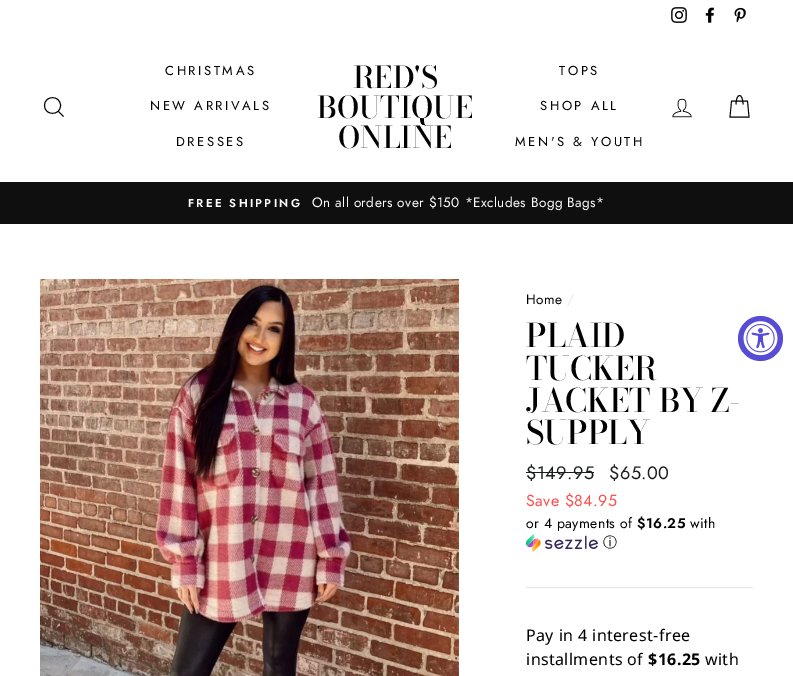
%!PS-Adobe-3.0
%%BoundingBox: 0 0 793 676
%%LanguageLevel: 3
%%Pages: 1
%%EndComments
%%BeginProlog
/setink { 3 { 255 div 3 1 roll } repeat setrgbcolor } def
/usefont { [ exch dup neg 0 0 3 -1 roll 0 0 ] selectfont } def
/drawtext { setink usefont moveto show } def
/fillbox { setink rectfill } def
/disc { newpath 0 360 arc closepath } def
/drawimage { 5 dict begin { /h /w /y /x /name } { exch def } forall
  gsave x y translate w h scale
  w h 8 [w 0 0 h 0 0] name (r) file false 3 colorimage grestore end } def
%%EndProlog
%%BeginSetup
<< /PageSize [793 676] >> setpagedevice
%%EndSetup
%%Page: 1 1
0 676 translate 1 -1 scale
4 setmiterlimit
0 0 793 676 255 255 255 fillbox
(assets/img1.rgb) 671 7 16 16 drawimage
(assets/img2.rgb) 705 7 9 16 drawimage
(assets/img3.rgb) 734 7 12 16 drawimage
0 0 0 setink
0.9 setlinewidth
60.5 105.5 moveto 60.5 116 44.5 116 44.5 105.5 curveto 44.5 95 60.5 95 60.5 105.5 curveto closepath 63.5 116.5 moveto 58.5 111.5 lineto stroke
/Jost-Regular 13 usefont
165 75 moveto 2.6 0 (CHRISTMAS) ashow
150 110 moveto 2.6 0 (NEW ARRIVALS) ashow
176 146 moveto 2.6 0 (DRESSES) ashow
(RED'S) 353 88 /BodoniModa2-Medium 30 0 0 0 drawtext
(BOUTIQUE) 317 118 /BodoniModa2-Medium 30 0 0 0 drawtext
(ONLINE) 338 148 /BodoniModa2-Medium 30 0 0 0 drawtext
/Jost-Regular 13 usefont
559 75 moveto 2.6 0 (TOPS) ashow
540 110 moveto 2.6 0 (SHOP ALL) ashow
515 146 moveto 2.6 0 (MEN'S & YOUTH) ashow
(assets/img4.rgb) 672 98 20 20 drawimage
736 104.5 moveto 736 92.5 743 92.5 743 104.5 curveto 731.5 101 moveto 747.5 101 lineto 749 117 lineto 730 117 lineto closepath stroke
0 182 793 42 15 15 15 fillbox
/Jost-SemiBold 11.5 usefont
255 255 255 setink
188 207 moveto 2.25 0 (FREE SHIPPING) ashow
/Jost-Regular 13.6 usefont
312 207 moveto 0.4 0 (On all orders over $150 *Excludes Bogg Bags*) ashow
(assets/img5.rgb) 40 279 419 397 drawimage
0 0 0 setink
526 304 moveto 0.4 0 (Home) ashow
232 232 225 setink
567 304 moveto 0.4 0 (/) ashow
(PLAID) 526 347 /BodoniModa-Medium 32.25 0 0 0 drawtext
(TUCKER) 526 380 /BodoniModa-Medium 32.25 0 0 0 drawtext
(JACKET BY Z-) 526 412 /BodoniModa-Medium 32.25 0 0 0 drawtext
(SUPPLY) 526 444 /BodoniModa-Medium 32.25 0 0 0 drawtext
/Jost-Regular 18 usefont
28 29 29 setink
526 479 moveto 0.4 0 ($149.95) ashow
526 472 68 1 28 29 29 fillbox
609 479 moveto 0.4 0 ($65.00) ashow
/Jost-Regular 16 usefont
255 78 78 setink
526 506 moveto 0.4 0 (Save $84.95) ashow
/Jost-Regular 14 usefont
0 0 0 setink
526 528 moveto 0.4 0 (or 4 payments of) ashow
/Jost-SemiBold 14 usefont
637 528 moveto 0.4 0 ($16.25) ashow
/Jost-Regular 14 usefont
690 528 moveto 0.4 0 (with) ashow
(assets/img6.rgb) 526 534 72 18 drawimage
/WenQuanYiZenHei-Medium 14 usefont
603 547 moveto 0.4 0 (ⓘ) ashow
526 587 227 1 232 232 225 fillbox
/NotoSans-Regular 16 usefont
0 0 0 setink
526 641 moveto 0.4 0 (Pay in 4 interest-free) ashow
526 665 moveto 0.4 0 (installments of) ashow
/NotoSans-Bold 16 usefont
648 665 moveto 0.4 0 ($16.25) ashow
/NotoSans-Regular 16 usefont
705 665 moveto 0.4 0 (with) ashow
87 76 213 setink
760.5 338.5 22.5 disc fill
(assets/img7.rgb) 743 321 35 35 drawimage
showpage
%%EOF
